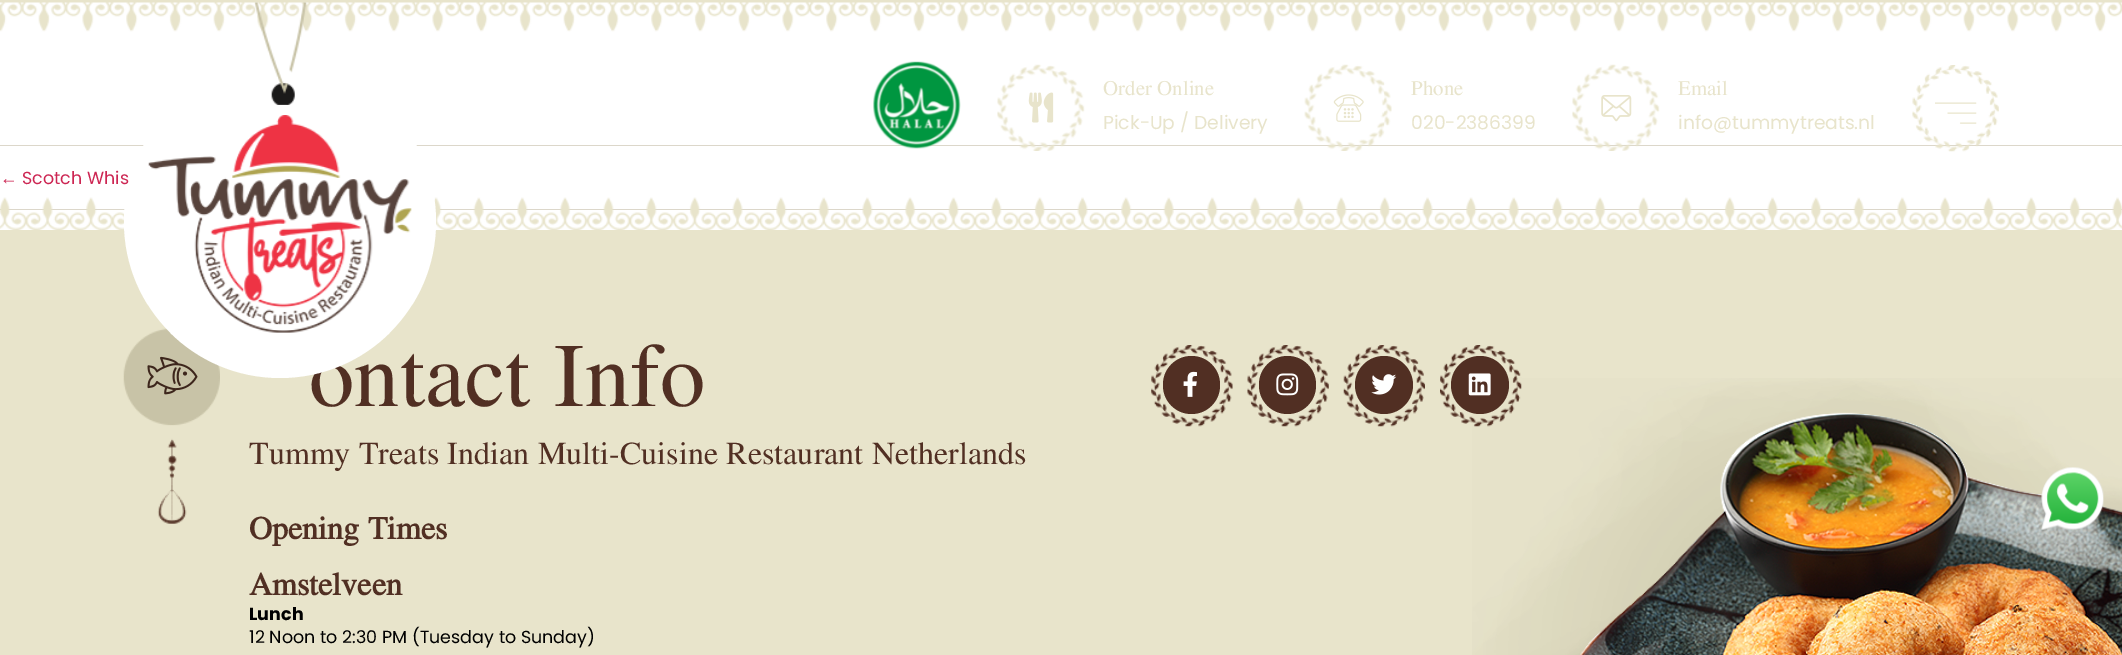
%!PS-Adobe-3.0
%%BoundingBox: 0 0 2122 655
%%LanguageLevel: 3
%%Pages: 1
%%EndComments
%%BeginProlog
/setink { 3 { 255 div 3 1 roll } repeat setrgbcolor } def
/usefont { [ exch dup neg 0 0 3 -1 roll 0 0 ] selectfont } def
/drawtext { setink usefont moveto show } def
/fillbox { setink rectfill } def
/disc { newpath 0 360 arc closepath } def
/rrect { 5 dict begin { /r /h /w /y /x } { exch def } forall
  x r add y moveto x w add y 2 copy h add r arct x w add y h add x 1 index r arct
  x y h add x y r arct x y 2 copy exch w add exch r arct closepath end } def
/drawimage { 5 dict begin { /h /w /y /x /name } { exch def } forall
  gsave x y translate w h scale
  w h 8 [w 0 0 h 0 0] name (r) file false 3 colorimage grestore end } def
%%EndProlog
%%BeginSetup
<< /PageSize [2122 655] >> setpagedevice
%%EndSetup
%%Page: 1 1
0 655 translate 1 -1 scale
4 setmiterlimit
0 0 2122 655 255 255 255 fillbox
(assets/img1.rgb) 0 0 2122 32 drawimage
0 145 2122 1 220 215 202 fillbox
(Scotch Whis) 22 184 /Poppins-Regular 17.5 205 38 83 drawtext
0 209 2122 1 220 215 202 fillbox
0 230 2122 425 232 228 203 fillbox
(assets/img12.rgb) 0 197 2122 33 drawimage
(assets/img13.rgb) 123 328 97 196 drawimage
(assets/img14.rgb) 147 356 51 39 drawimage
(ontact Info) 309 406 /Jomolhari-Regular 81.25 81 47 35 drawtext
255 255 255 setink
124 65 312 313 156 rrect fill
(assets/img2.rgb) 254 2 53 103 drawimage
(assets/img3.rgb) 148 115 264 218 drawimage
(assets/img4.rgb) 873 61 88 88 drawimage
(assets/img5.rgb) 997 64 88 87 drawimage
(assets/img6.rgb) 1028 92 26 31 drawimage
(Order Online) 1103 95 /Jomolhari-Regular 18.75 232 228 203 drawtext
(Pick-Up / Delivery) 1103 129 /Poppins-Regular 18.75 232 228 203 drawtext
(assets/img7.rgb) 1304 64 88 87 drawimage
(assets/img8.rgb) 1333 94 31 28 drawimage
(Phone) 1411 95 /Jomolhari-Regular 18.75 232 228 203 drawtext
(020-2386399) 1411 129 /Poppins-Regular 18.75 232 228 203 drawtext
(assets/img5.rgb) 1572 64 88 87 drawimage
(assets/img9.rgb) 1601 95 31 27 drawimage
(Email) 1678 95 /Jomolhari-Regular 18.75 232 228 203 drawtext
(info@tummytreats.nl) 1678 129 /Poppins-Regular 18.75 232 228 203 drawtext
(assets/img10.rgb) 1912 65 87 87 drawimage
(assets/img11.rgb) 1935 102 42 22 drawimage
(←) 0 184 /LiberationSans-Regular 17.5 205 38 83 drawtext
(assets/img15.rgb) 1151 345 82 82 drawimage
81 47 35 setink
1163 356 57 58 28.5 rrect fill
(assets/img16.rgb) 1183 371 14 26 drawimage
(assets/img17.rgb) 1247 345 82 82 drawimage
1259 356 57 58 28.5 rrect fill
(assets/img18.rgb) 1276 373 23 23 drawimage
(assets/img19.rgb) 1343 345 82 82 drawimage
1384 385 29 disc fill
(assets/img20.rgb) 1371 374 26 21 drawimage
(assets/img23.rgb) 1472 378 650 277 drawimage
(assets/img21.rgb) 1440 345 82 82 drawimage
1480 385 29 disc fill
(assets/img22.rgb) 1468 373 23 23 drawimage
(Tummy Treats Indian Multi-Cuisine Restaurant Netherlands) 249 464 /Jomolhari-Regular 28.75 81 47 35 drawtext
(Opening Times) 249 539 /Jomolhari-Bold 28.75 81 47 35 drawtext
(Amstelveen) 249 595 /Jomolhari-Bold 28.75 81 47 35 drawtext
(Lunch) 249 620 /Poppins-Bold 17.5 0 0 0 drawtext
(12 Noon to 2:30 PM \(Tuesday to Sunday\)) 249 643 /Poppins-Regular 17.5 0 0 0 drawtext
(assets/img24.rgb) 2041 467 63 63 drawimage
showpage
%%EOF
